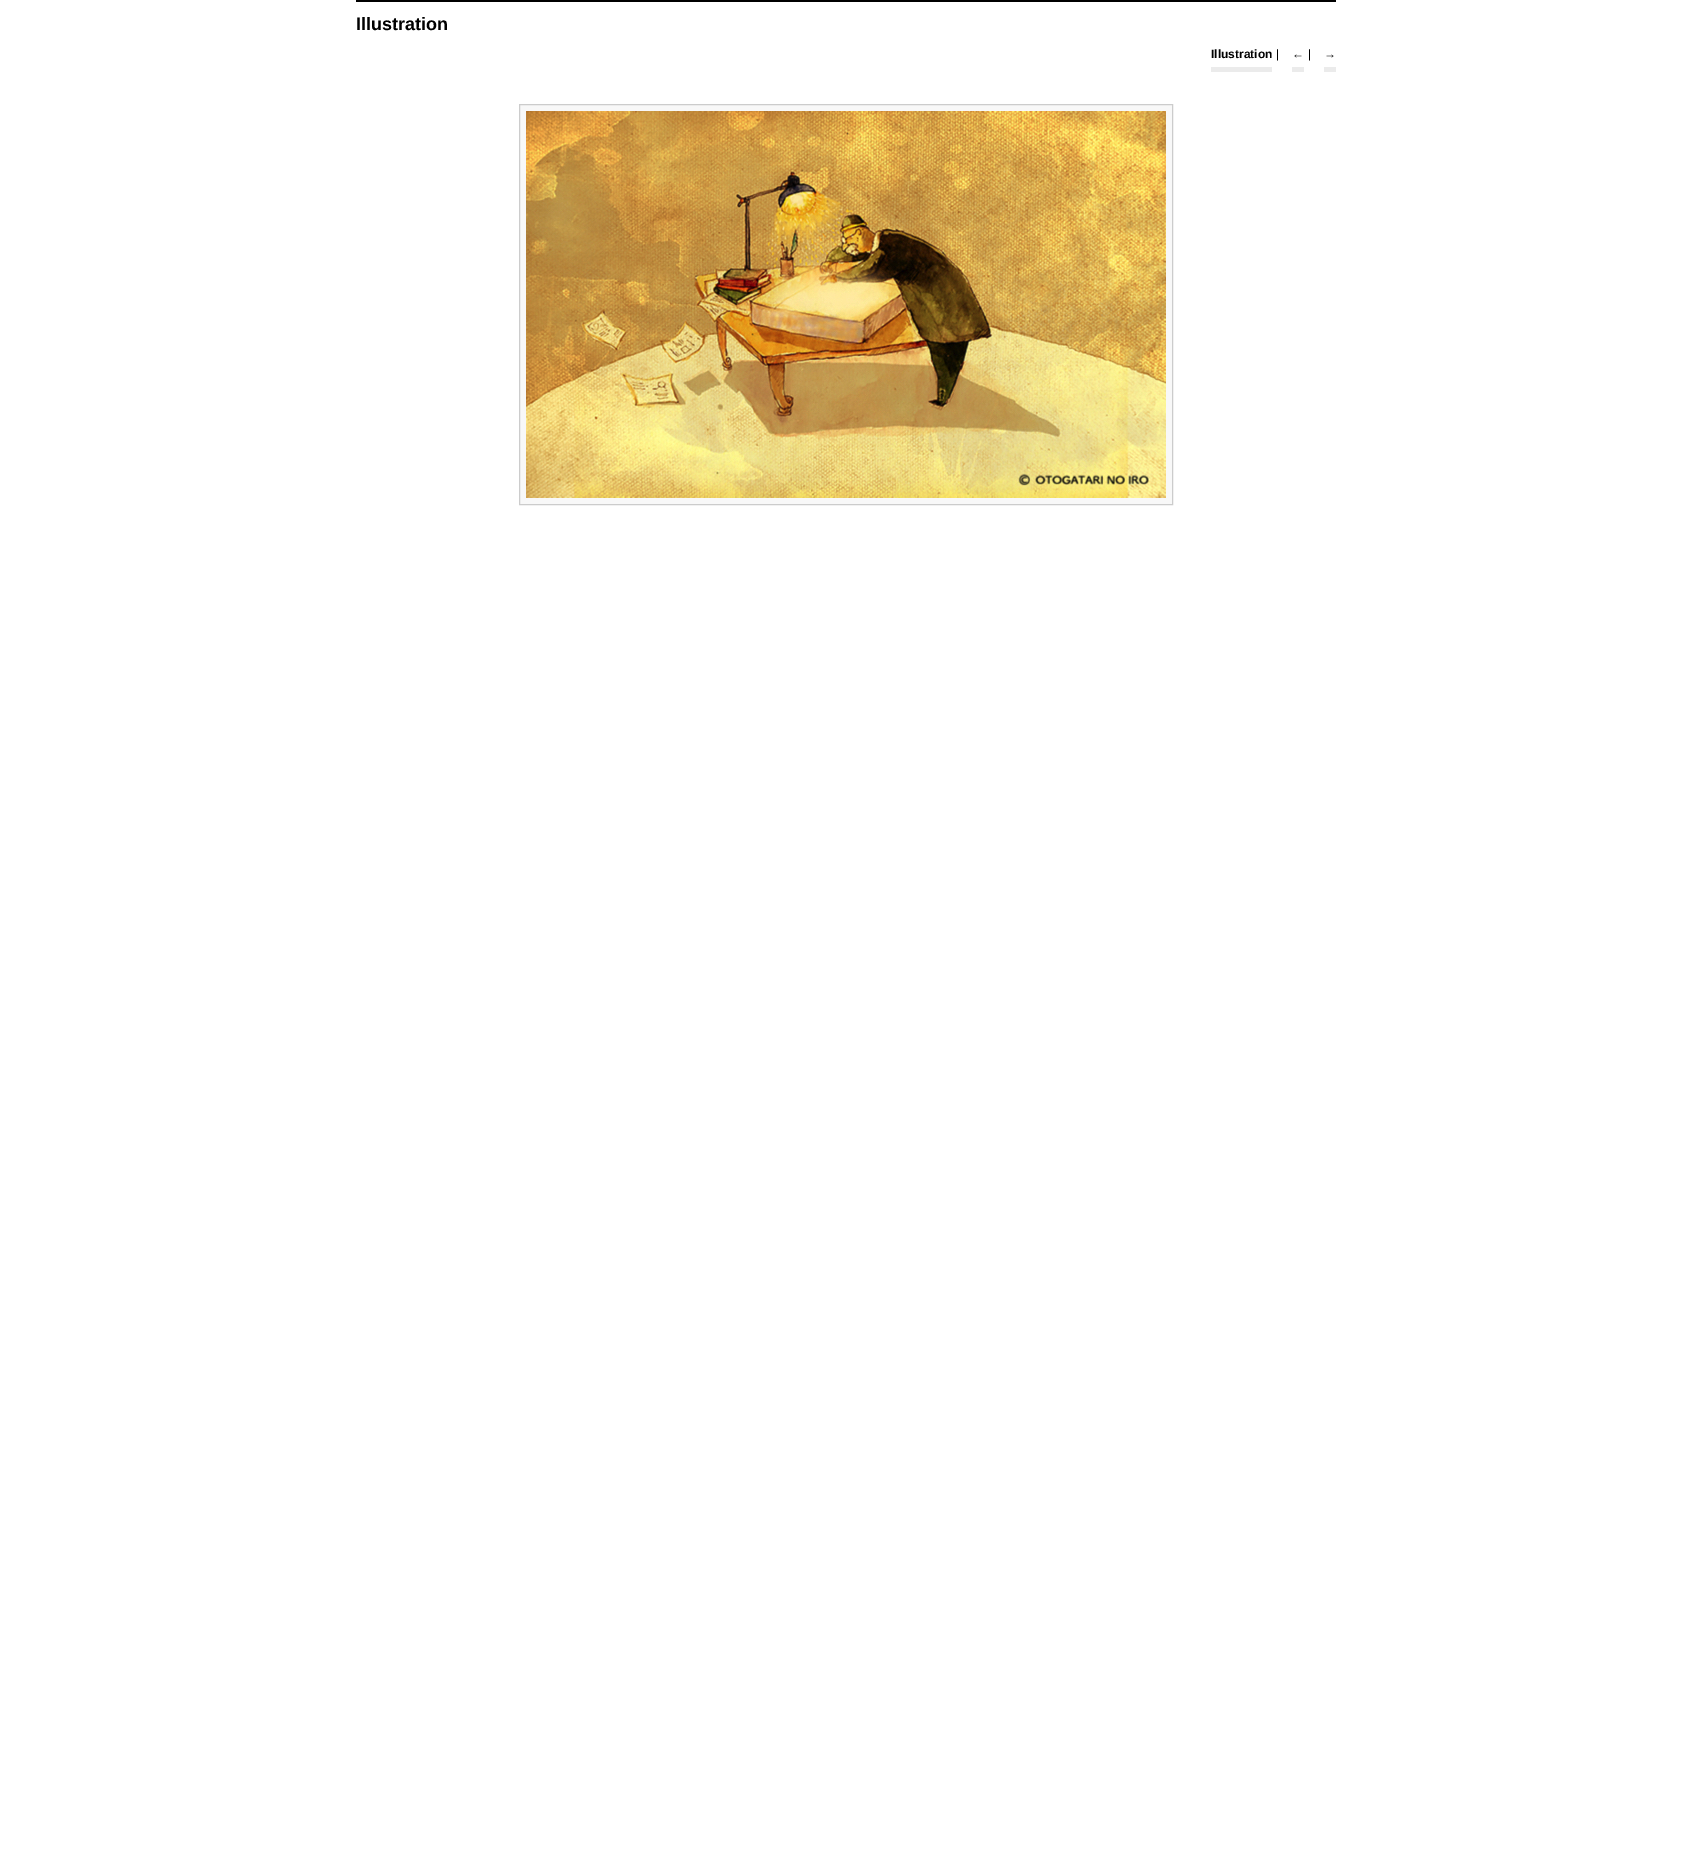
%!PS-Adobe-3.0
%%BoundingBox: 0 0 1692 1876
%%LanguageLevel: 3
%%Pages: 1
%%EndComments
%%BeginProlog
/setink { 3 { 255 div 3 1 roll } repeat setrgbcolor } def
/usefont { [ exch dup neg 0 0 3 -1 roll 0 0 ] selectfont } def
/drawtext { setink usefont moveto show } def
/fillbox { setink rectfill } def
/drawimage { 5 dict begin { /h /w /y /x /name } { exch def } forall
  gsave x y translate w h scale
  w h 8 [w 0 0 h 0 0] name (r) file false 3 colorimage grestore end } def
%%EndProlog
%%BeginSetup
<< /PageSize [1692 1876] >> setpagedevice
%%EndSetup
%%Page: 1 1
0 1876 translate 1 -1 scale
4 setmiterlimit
0 0 1692 1876 255 255 255 fillbox
(Illustration) 356 30 /LiberationSans-Bold 18 0 0 0 drawtext
356 0 980 2 0 0 0 fillbox
(Illustration) 1211 58 /LiberationSans-Bold 12 0 0 0 drawtext
1211 67 61 5 235 235 235 fillbox
(|) 1276 58 /LiberationSans-Regular 12 0 0 0 drawtext
(←) 1292 58 /LiberationSans-Bold 12 0 0 0 drawtext
1292 67 12 5 235 235 235 fillbox
(|) 1308 58 /LiberationSans-Regular 12 0 0 0 drawtext
(→) 1324 58 /LiberationSans-Bold 12 0 0 0 drawtext
1324 67 12 5 235 235 235 fillbox
248 248 248 setink
519.5 104.5 moveto 1172.5 104.5 lineto 1172.5 504.5 lineto 519.5 504.5 lineto closepath gsave fill grestore
204 204 204 setink
stroke
(assets/img1.rgb) 526 111 640 387 drawimage
showpage
%%EOF
